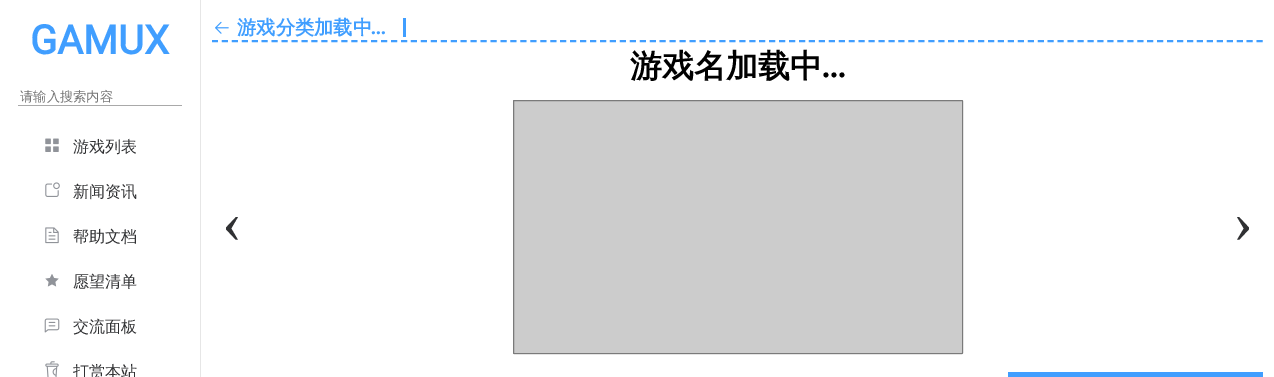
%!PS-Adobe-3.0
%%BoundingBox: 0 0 1274 377
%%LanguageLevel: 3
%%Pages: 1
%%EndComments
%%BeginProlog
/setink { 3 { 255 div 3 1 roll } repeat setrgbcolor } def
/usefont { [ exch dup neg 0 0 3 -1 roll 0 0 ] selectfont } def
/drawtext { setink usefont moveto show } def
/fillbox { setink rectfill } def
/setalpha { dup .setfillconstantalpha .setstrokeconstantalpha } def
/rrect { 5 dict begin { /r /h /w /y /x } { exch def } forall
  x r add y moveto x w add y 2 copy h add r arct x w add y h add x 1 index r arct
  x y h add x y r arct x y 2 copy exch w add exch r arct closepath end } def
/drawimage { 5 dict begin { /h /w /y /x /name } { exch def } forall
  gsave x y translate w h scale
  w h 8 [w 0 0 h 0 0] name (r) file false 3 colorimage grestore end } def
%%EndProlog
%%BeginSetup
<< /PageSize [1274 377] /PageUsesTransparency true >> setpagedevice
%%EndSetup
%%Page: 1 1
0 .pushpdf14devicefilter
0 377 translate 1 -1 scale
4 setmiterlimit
0 0 1274 377 255 255 255 fillbox
200 0 1 377 230 230 230 fillbox
(GAMUX) 30 54 /Roboto-Bold 40 64 158 255 drawtext
18 105 164 1 169 169 169 fillbox
(请输入搜索内容) 20 101 /WenQuanYiZenHei-Medium 13.25 117 117 117 drawtext
(assets/img1.rgb) 45 138 14 14 drawimage
(游戏列表) 73 152 /WenQuanYiZenHei-Medium 16 48 49 51 drawtext
(assets/img2.rgb) 45 182 15 15 drawimage
(新闻资讯) 73 197 /WenQuanYiZenHei-Medium 16 48 49 51 drawtext
(assets/img3.rgb) 45 227 14 17 drawimage
(帮助文档) 73 242 /WenQuanYiZenHei-Medium 16 48 49 51 drawtext
(assets/img4.rgb) 45 274 14 13 drawimage
(愿望清单) 73 287 /WenQuanYiZenHei-Medium 16 48 49 51 drawtext
(assets/img5.rgb) 44 318 16 15 drawimage
(交流面板) 73 332 /WenQuanYiZenHei-Medium 16 48 49 51 drawtext
(assets/img6.rgb) 45 361 14 16 drawimage
(打赏本站) 73 377 /WenQuanYiZenHei-Medium 16 48 49 51 drawtext
64 158 255 setink
2 setlinewidth
[6 3.95] 0 setdash
212 41 moveto 1263 41 lineto stroke
(assets/img7.rgb) 215 21 14 13 drawimage
(游戏分类加载中) 237 34 /WenQuanYiZenHei-Bold 19.25 64 158 255 drawtext
(...) 371 34 /LiberationSerif-Bold 19.25 64 158 255 drawtext
403 18 3 19 64 158 255 fillbox
(游戏名加载中) 630 77 /WenQuanYiZenHei-Bold 32 0 0 0 drawtext
(...) 822 77 /LiberationSerif-Bold 32 0 0 0 drawtext
204 204 204 setink
513 100 450 254 1 rrect fill
0.4 setalpha
0 0 0 setink
1 setlinewidth
[] 0 setdash
513.5 100.5 449 253 0.5 rrect stroke
1 setalpha
(‹) 222 242 /LiberationSerif-Regular 60 48 49 51 drawtext
(›) 1233 242 /LiberationSerif-Regular 60 48 49 51 drawtext
1008 372 255 5 64 158 255 fillbox
.poppdf14devicefilter showpage
%%EOF
